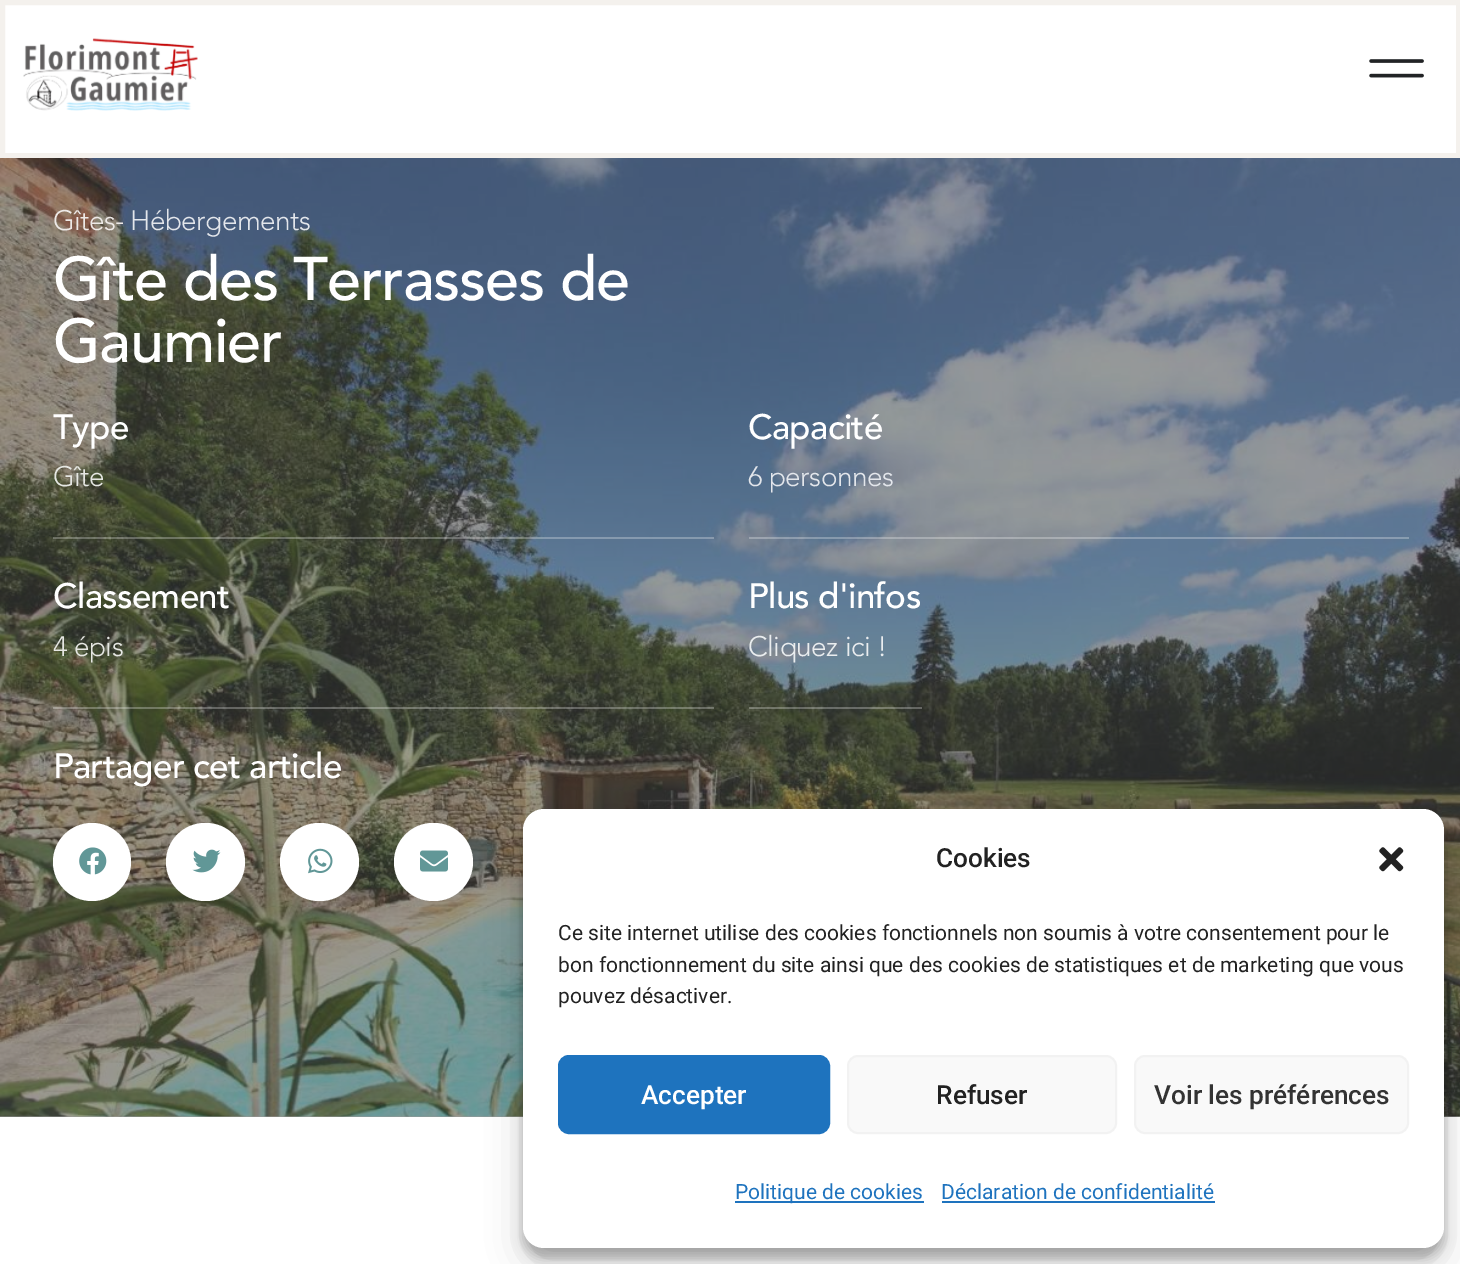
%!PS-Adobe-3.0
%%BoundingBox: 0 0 1460 1264
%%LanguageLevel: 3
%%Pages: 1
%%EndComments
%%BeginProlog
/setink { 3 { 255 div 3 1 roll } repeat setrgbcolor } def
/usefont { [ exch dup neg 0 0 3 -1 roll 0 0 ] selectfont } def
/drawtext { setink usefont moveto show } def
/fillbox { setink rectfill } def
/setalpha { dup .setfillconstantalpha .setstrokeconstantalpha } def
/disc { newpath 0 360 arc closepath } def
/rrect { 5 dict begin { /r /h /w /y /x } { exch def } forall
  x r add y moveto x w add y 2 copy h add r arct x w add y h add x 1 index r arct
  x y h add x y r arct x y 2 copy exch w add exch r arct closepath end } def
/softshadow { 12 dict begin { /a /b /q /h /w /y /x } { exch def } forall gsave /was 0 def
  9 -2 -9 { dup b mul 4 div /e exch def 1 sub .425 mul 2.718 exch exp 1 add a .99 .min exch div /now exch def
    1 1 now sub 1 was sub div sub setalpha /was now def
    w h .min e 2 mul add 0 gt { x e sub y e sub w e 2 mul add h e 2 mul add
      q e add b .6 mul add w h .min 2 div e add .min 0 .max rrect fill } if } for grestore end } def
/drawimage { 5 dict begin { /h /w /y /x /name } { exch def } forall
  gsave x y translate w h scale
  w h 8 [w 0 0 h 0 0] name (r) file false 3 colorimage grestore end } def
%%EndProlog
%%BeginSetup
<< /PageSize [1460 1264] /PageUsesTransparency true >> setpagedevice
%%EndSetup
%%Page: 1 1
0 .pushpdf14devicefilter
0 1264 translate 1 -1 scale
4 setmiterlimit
0 0 1460 1264 255 255 255 fillbox
0 1116 1460 1 154 154 154 fillbox
244 241 237 setink
5 setlinewidth
2.5 2.5 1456 153 rectstroke
(assets/img1.rgb) 23 38 175 73 drawimage
(assets/img2.rgb) 1369 59 55 19 drawimage
(assets/img3.rgb) 0 158 1460 959 drawimage
/Avenir-Light 28 usefont
237 233 231 setink
53 230 moveto -0.5 0 (Gîtes) ashow
115 230 moveto -0.5 0 (-) ashow
227 230 235 setink
130 230 moveto -0.5 0 (Hébergements) ashow
/Avenir-Medium 61.25 usefont
255 255 255 setink
53 300 moveto -1.25 0 (Gîte des Terrasses de) ashow
53 362 moveto -1.25 0 (Gaumier) ashow
/Avenir-Medium 35 usefont
53 439 moveto -0.7 0 (Type) ashow
/Avenir-Light 28 usefont
230 231 227 setink
53 486 moveto -0.5 0 (Gîte) ashow
0.27 setalpha
53 537 661 2 255 255 255 fillbox
/Avenir-Medium 35 usefont
1 setalpha
748 439 moveto -0.7 0 (Capacité) ashow
/Avenir-Light 28 usefont
227 230 235 setink
748 486 moveto -0.5 0 (6 personnes) ashow
0.27 setalpha
749 537 660 2 255 255 255 fillbox
/Avenir-Medium 35 usefont
1 setalpha
53 608 moveto -0.7 0 (Classement) ashow
/Avenir-Light 28 usefont
230 231 227 setink
53 656 moveto -0.5 0 (4 épis) ashow
0.27 setalpha
53 707 661 2 255 255 255 fillbox
/Avenir-Medium 35 usefont
1 setalpha
748 608 moveto -0.7 0 (Plus d'infos) ashow
/Avenir-Light 28 usefont
234 237 239 setink
748 656 moveto -0.5 0 (Cliquez ici !) ashow
0.27 setalpha
749 707 173 2 255 255 255 fillbox
/Avenir-Medium 35 usefont
1 setalpha
53 778 moveto -0.7 0 (Partager cet article) ashow
92 862 39 disc fill
(assets/img4.rgb) 79 847 28 28 drawimage
166 823 79 78 39 rrect fill
(assets/img5.rgb) 192 849 29 24 drawimage
280 823 79 78 39 rrect fill
(assets/img6.rgb) 308 848 25 26 drawimage
394 823 79 78 39 rrect fill
(assets/img7.rgb) 420 850 28 22 drawimage
0 0 0 setink
523 819 921 439 21 5 0.23 softshadow
523 826 921 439 21 17.5 0.19 softshadow
255 255 255 setink
523 809 921 439 21 rrect fill
(Cookies) 936 867 /Roboto-Medium 26.25 34 34 34 drawtext
(assets/img8.rgb) 1379 847 25 25 drawimage
(Ce site internet utilise des cookies fonctionnels non soumis à votre consentement pour le) 558 940 /Roboto-Regular 21 34 34 34 drawtext
(bon fonctionnement du site ainsi que des cookies de statistiques et de marketing que vous) 558 972 /Roboto-Regular 21 34 34 34 drawtext
(pouvez désactiver.) 558 1003 /Roboto-Regular 21 34 34 34 drawtext
30 115 190 setink
559 1056 270 77 10 rrect gsave fill grestore
2 setlinewidth
stroke
(Accepter) 641 1104 /Roboto-Medium 26.25 255 255 255 drawtext
249 249 249 setink
848 1056 268 77 10 rrect gsave fill grestore
242 242 242 setink
stroke
(Refuser) 936 1104 /Roboto-Medium 26.25 34 34 34 drawtext
249 249 249 setink
1135 1056 273 77 10 rrect gsave fill grestore
242 242 242 setink
stroke
(Voir les préférences) 1154 1104 /Roboto-Medium 26.25 51 51 51 drawtext
735 1201 189 2 30 115 190 fillbox
(Politique de cookies) 735 1199 /Roboto-Regular 21 30 115 190 drawtext
(Déclaration de confidentialité) 941 1199 /Roboto-Regular 21 30 115 190 drawtext
942 1201 273 2 30 115 190 fillbox
.poppdf14devicefilter showpage
%%EOF
